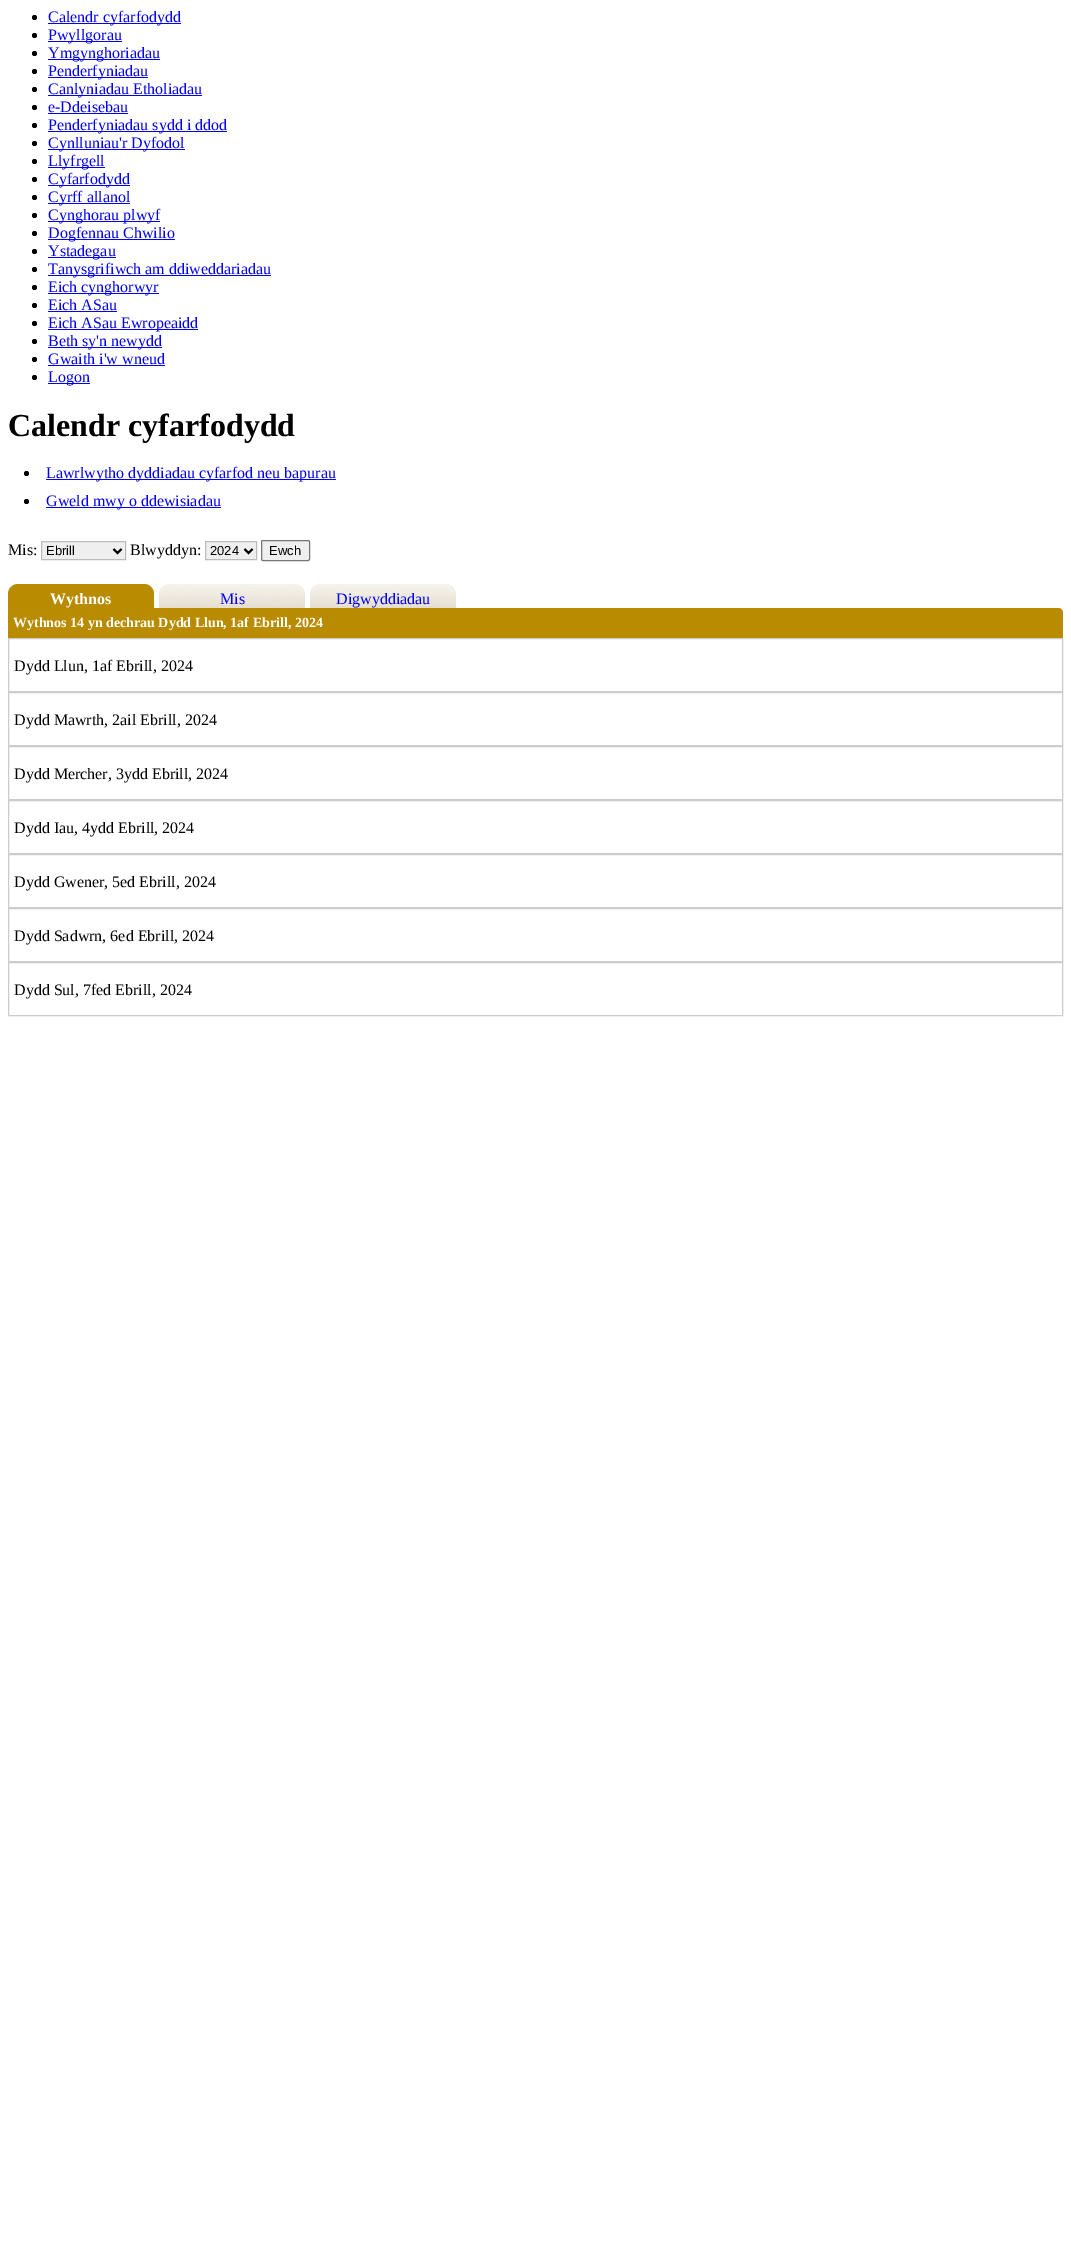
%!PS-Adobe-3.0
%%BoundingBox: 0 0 1071 2242
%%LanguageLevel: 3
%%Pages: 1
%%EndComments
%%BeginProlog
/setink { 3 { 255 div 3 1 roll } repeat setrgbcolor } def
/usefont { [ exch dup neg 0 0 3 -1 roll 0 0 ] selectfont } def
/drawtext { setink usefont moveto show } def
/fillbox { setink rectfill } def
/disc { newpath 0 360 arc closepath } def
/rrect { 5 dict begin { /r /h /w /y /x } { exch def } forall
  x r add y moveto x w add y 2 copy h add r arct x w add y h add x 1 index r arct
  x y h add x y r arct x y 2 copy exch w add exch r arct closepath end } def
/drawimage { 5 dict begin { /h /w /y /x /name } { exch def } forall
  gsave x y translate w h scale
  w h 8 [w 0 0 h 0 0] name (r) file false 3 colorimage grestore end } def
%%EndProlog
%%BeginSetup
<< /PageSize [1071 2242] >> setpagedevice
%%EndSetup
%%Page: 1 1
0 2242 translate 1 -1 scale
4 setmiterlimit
0 0 1071 2242 255 255 255 fillbox
0 0 0 setink
34.5 17.5 2.5 disc fill
48 23 133 1 0 0 238 fillbox
(Calendr cyfarfodydd) 48 22 /LiberationSerif-Regular 16 0 0 238 drawtext
0 0 0 setink
34.5 35.5 2.5 disc fill
48 41 74 1 0 0 238 fillbox
(Pwyllgorau) 48 40 /LiberationSerif-Regular 16 0 0 238 drawtext
0 0 0 setink
34.5 53.5 2.5 disc fill
48 59 112 1 0 0 238 fillbox
(Ymgynghoriadau) 48 58 /LiberationSerif-Regular 16 0 0 238 drawtext
0 0 0 setink
34.5 71.5 2.5 disc fill
48 77 100 1 0 0 238 fillbox
(Penderfyniadau) 48 76 /LiberationSerif-Regular 16 0 0 238 drawtext
0 0 0 setink
34.5 89.5 2.5 disc fill
48 95 154 1 0 0 238 fillbox
(Canlyniadau Etholiadau) 48 94 /LiberationSerif-Regular 16 0 0 238 drawtext
0 0 0 setink
34.5 107.5 2.5 disc fill
(e-Ddeisebau) 48 112 /LiberationSerif-Regular 16 0 0 238 drawtext
48 113 80 1 0 0 238 fillbox
0 0 0 setink
34.5 125.5 2.5 disc fill
48 131 179 1 0 0 238 fillbox
(Penderfyniadau sydd i ddod) 48 130 /LiberationSerif-Regular 16 0 0 238 drawtext
0 0 0 setink
34.5 143.5 2.5 disc fill
48 149 137 1 0 0 238 fillbox
(Cynlluniau'r Dyfodol) 48 148 /LiberationSerif-Regular 16 0 0 238 drawtext
0 0 0 setink
34.5 161.5 2.5 disc fill
48 167 57 1 0 0 238 fillbox
(Llyfrgell) 48 166 /LiberationSerif-Regular 16 0 0 238 drawtext
0 0 0 setink
34.5 179.5 2.5 disc fill
48 185 82 1 0 0 238 fillbox
(Cyfarfodydd) 48 184 /LiberationSerif-Regular 16 0 0 238 drawtext
0 0 0 setink
34.5 197.5 2.5 disc fill
48 203 82 1 0 0 238 fillbox
(Cyrff allanol) 48 202 /LiberationSerif-Regular 16 0 0 238 drawtext
0 0 0 setink
34.5 215.5 2.5 disc fill
48 221 112 1 0 0 238 fillbox
(Cynghorau plwyf) 48 220 /LiberationSerif-Regular 16 0 0 238 drawtext
0 0 0 setink
34.5 233.5 2.5 disc fill
48 239 127 1 0 0 238 fillbox
(Dogfennau Chwilio) 48 238 /LiberationSerif-Regular 16 0 0 238 drawtext
0 0 0 setink
34.5 251.5 2.5 disc fill
48 257 68 1 0 0 238 fillbox
(Ystadegau) 48 256 /LiberationSerif-Regular 16 0 0 238 drawtext
0 0 0 setink
34.5 269.5 2.5 disc fill
48 275 223 1 0 0 238 fillbox
(Tanysgrifiwch am ddiweddariadau) 48 274 /LiberationSerif-Regular 16 0 0 238 drawtext
0 0 0 setink
34.5 287.5 2.5 disc fill
48 293 111 1 0 0 238 fillbox
(Eich cynghorwyr) 48 292 /LiberationSerif-Regular 16 0 0 238 drawtext
0 0 0 setink
34.5 305.5 2.5 disc fill
(Eich ASau) 48 310 /LiberationSerif-Regular 16 0 0 238 drawtext
48 311 69 1 0 0 238 fillbox
0 0 0 setink
34.5 323.5 2.5 disc fill
48 329 150 1 0 0 238 fillbox
(Eich ASau Ewropeaidd) 48 328 /LiberationSerif-Regular 16 0 0 238 drawtext
0 0 0 setink
34.5 341.5 2.5 disc fill
48 347 114 1 0 0 238 fillbox
(Beth sy'n newydd) 48 346 /LiberationSerif-Regular 16 0 0 238 drawtext
0 0 0 setink
34.5 359.5 2.5 disc fill
(Gwaith i'w wneud) 48 364 /LiberationSerif-Regular 16 0 0 238 drawtext
48 365 117 1 0 0 238 fillbox
0 0 0 setink
34.5 377.5 2.5 disc fill
48 383 42 1 0 0 238 fillbox
(Logon) 48 382 /LiberationSerif-Regular 16 0 0 238 drawtext
(Calendr cyfarfodydd) 8 436 /LiberationSerif-Bold 32 0 0 0 drawtext
26.5 473.5 2.5 disc fill
46 479 290 1 0 0 238 fillbox
(Lawrlwytho dyddiadau cyfarfod neu bapurau) 46 478 /LiberationSerif-Regular 16 0 0 238 drawtext
0 0 0 setink
26.5 501.5 2.5 disc fill
46 507 175 1 0 0 238 fillbox
(Gweld mwy o ddewisiadau) 46 506 /LiberationSerif-Regular 16 0 0 238 drawtext
(Mis:) 8 555 /LiberationSerif-Regular 16 0 0 0 drawtext
239 239 239 setink
41.5 541.5 moveto 125.5 541.5 lineto 125.5 559.5 lineto 41.5 559.5 lineto closepath gsave fill grestore
189 188 188 setink
stroke
0 0 0 setink
2 setlinewidth
113.5 549 moveto 117.5 553 lineto 121.5 549 lineto stroke
(Ebrill) 46 555 /LiberationSans-Regular 13 0 0 0 drawtext
(Blwyddyn:) 130 555 /LiberationSerif-Regular 16 0 0 0 drawtext
239 239 239 setink
205.5 541.5 moveto 256.5 541.5 lineto 256.5 559.5 lineto 205.5 559.5 lineto closepath gsave fill grestore
189 188 188 setink
1 setlinewidth
stroke
0 0 0 setink
2 setlinewidth
244.5 549 moveto 248.5 553 lineto 252.5 549 lineto stroke
(2024) 210 555 /LiberationSans-Regular 13 0 0 0 drawtext
239 239 239 setink
261.5 540.5 48 20 1.5 rrect gsave fill grestore
118 118 118 setink
1 setlinewidth
stroke
(Ewch) 269 555 /LiberationSans-Regular 13 0 0 0 drawtext
185 139 0 setink
18 584 moveto 144 584 lineto 149.5 584 154 588.5 154 594 curveto 154 608 lineto 8 608 lineto 8 594 lineto 8 588.5 12.5 584 18 584 curveto closepath fill
(Wythnos) 50 604 /LiberationSerif-Bold 16 255 255 255 drawtext
243 243 243 setink
169 584 moveto 295 584 lineto 300.5 584 305 588.5 305 594 curveto 305 608 lineto 159 608 lineto 159 594 lineto 159 588.5 163.5 584 169 584 curveto closepath fill
(assets/img1.rgb) 159 584 146 24 drawimage
(Mis) 220 604 /LiberationSerif-Regular 16 0 0 238 drawtext
243 243 243 setink
320 584 moveto 446 584 lineto 451.5 584 456 588.5 456 594 curveto 456 608 lineto 310 608 lineto 310 594 lineto 310 588.5 314.5 584 320 584 curveto closepath fill
(assets/img2.rgb) 310 584 146 24 drawimage
(Digwyddiadau) 336 604 /LiberationSerif-Regular 16 0 0 238 drawtext
185 139 0 setink
8 608 moveto 1058 608 lineto 1061 608 1063 610 1063 613 curveto 1063 638 lineto 8 638 lineto closepath fill
(Wythnos 14 yn dechrau Dydd Llun, 1af Ebrill, 2024) 13 627 /LiberationSerif-Bold 14 255 255 255 drawtext
204 204 204 setink
8.5 638.5 1054 53 rectstroke
(Dydd Llun, 1af Ebrill, 2024) 14 671 /LiberationSerif-Regular 16 0 0 0 drawtext
204 204 204 setink
8.5 692.5 1054 53 rectstroke
(Dydd Mawrth, 2ail Ebrill, 2024) 14 725 /LiberationSerif-Regular 16 0 0 0 drawtext
204 204 204 setink
8.5 746.5 1054 53 rectstroke
(Dydd Mercher, 3ydd Ebrill, 2024) 14 779 /LiberationSerif-Regular 16 0 0 0 drawtext
204 204 204 setink
8.5 800.5 1054 53 rectstroke
(Dydd Iau, 4ydd Ebrill, 2024) 14 833 /LiberationSerif-Regular 16 0 0 0 drawtext
204 204 204 setink
8.5 854.5 1054 53 rectstroke
(Dydd Gwener, 5ed Ebrill, 2024) 14 887 /LiberationSerif-Regular 16 0 0 0 drawtext
204 204 204 setink
8.5 908.5 1054 53 rectstroke
(Dydd Sadwrn, 6ed Ebrill, 2024) 14 941 /LiberationSerif-Regular 16 0 0 0 drawtext
204 204 204 setink
8.5 962.5 1054 53 rectstroke
(Dydd Sul, 7fed Ebrill, 2024) 14 995 /LiberationSerif-Regular 16 0 0 0 drawtext
showpage
%%EOF
